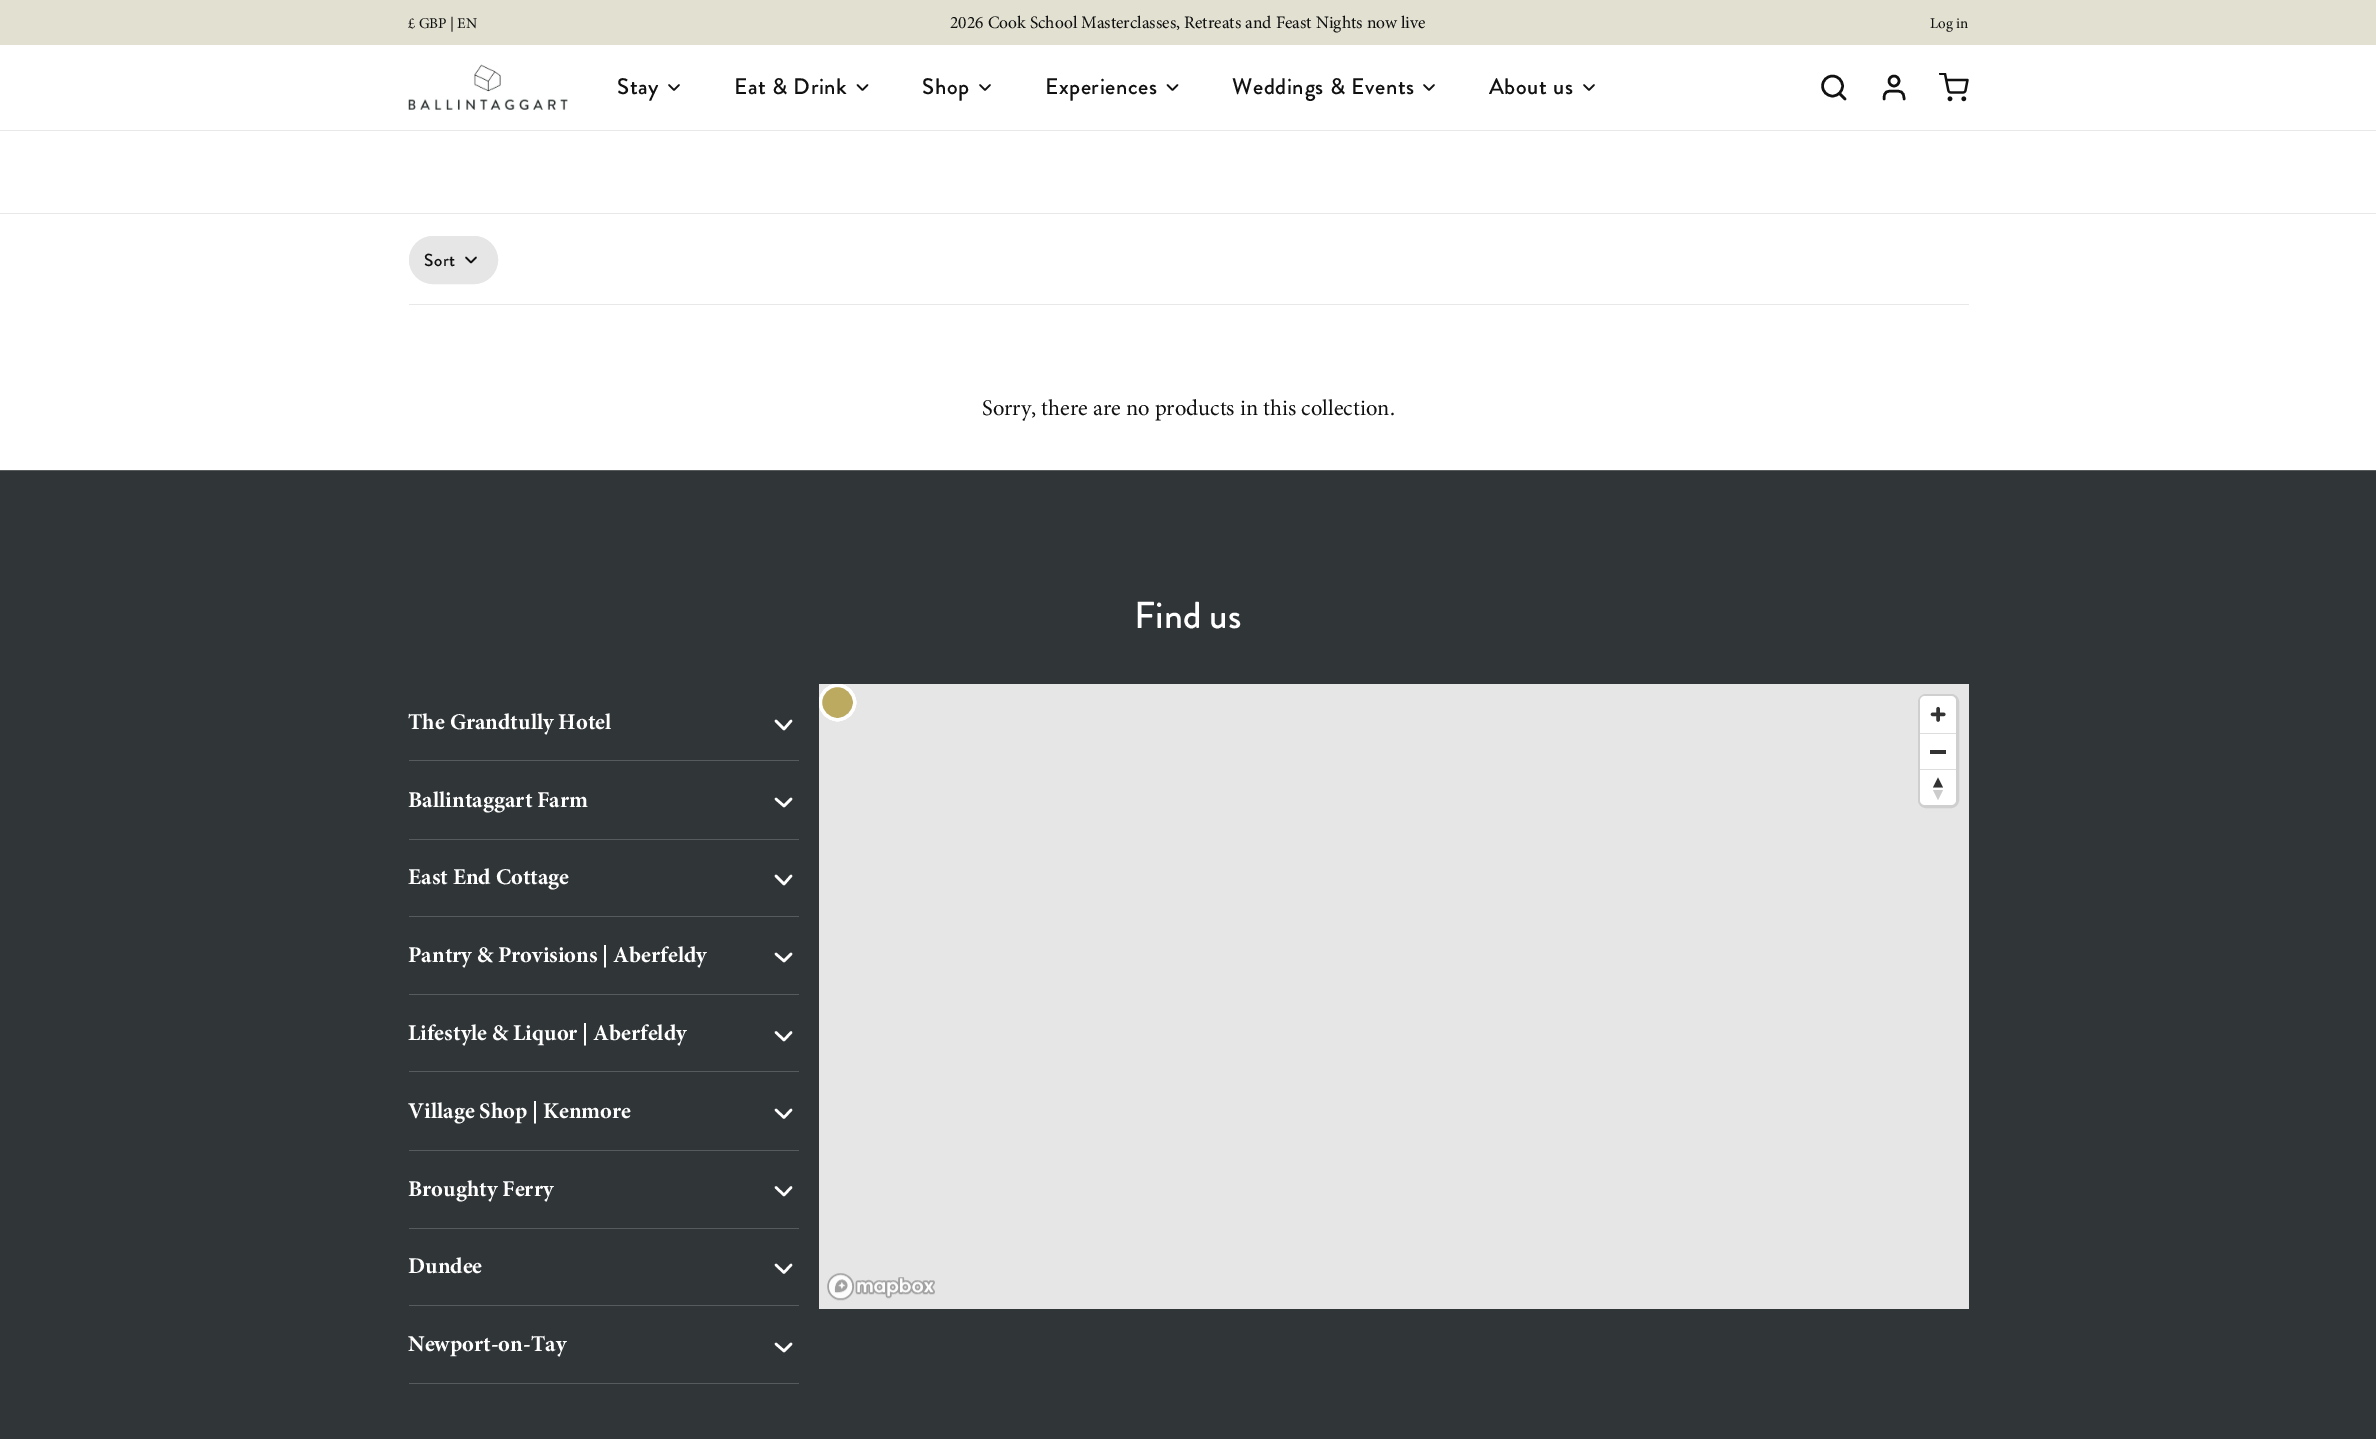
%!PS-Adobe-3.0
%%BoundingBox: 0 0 2376 1439
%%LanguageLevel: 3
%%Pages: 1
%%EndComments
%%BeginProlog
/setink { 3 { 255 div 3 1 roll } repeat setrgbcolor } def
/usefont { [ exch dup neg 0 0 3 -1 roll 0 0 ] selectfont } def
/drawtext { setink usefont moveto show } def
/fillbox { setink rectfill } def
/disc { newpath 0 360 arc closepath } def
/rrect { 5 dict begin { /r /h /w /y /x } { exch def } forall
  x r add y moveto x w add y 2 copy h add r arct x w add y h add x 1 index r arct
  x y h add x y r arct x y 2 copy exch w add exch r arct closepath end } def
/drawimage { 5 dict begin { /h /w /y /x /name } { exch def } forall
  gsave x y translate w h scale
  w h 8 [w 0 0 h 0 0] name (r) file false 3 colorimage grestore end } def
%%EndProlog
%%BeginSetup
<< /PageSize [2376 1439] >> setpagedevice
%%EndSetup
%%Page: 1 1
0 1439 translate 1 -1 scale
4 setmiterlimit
0 0 2376 1439 255 255 255 fillbox
0 0 2376 45 226 224 209 fillbox
(£ GBP | EN) 408 28 /Minion-Regular 15 17 17 17 drawtext
(2026 Cook School Masterclasses, Retreats and Feast Nights now live) 950 28 /Minion-Regular 17.5 17 17 17 drawtext
(Log in) 1930 28 /Minion-Regular 15 17 17 17 drawtext
0 130 2376 1 232 232 232 fillbox
(assets/img1.rgb) 408 64 160 46 drawimage
/BrandonGrotesque-Medium 22.5 usefont
17 17 17 setink
617 94 moveto 0.6 0 (Stay) ashow
1.7 setlinewidth
1 setlinecap
1 setlinejoin
669 85 moveto 674 90 lineto 679 85 lineto stroke
734 94 moveto 0.6 0 (Eat & Drink) ashow
857.5 85 moveto 862.5 90 lineto 867.5 85 lineto stroke
922 94 moveto 0.6 0 (Shop) ashow
980 85 moveto 985 90 lineto 990 85 lineto stroke
1045 94 moveto 0.6 0 (Experiences) ashow
1167.5 85 moveto 1172.5 90 lineto 1177.5 85 lineto stroke
1232 94 moveto 0.6 0 (Weddings & Events) ashow
1424 85 moveto 1429 90 lineto 1434 85 lineto stroke
1489 94 moveto 0.6 0 (About us) ashow
1584 85 moveto 1589 90 lineto 1594 85 lineto stroke
2.5 setlinewidth
0 setlinecap
0 setlinejoin
1832.5 86 10 disc stroke
1 setlinecap
1 setlinejoin
1845 99 moveto 1839.5 93.5 lineto stroke
1904 99 moveto 1904 91 1900.5 91 1894 91 curveto 1887 91 1884 91 1884 99 curveto stroke
0 setlinecap
0 setlinejoin
1894 81 5 disc stroke
(assets/img2.rgb) 1939 73 30 29 drawimage
0 213 2376 1 232 232 232 fillbox
409 304 1560 1 232 232 232 fillbox
230 230 230 setink
409.5 236.5 88 47 23.5 rrect gsave fill grestore
1 setlinewidth
stroke
/BrandonGrotesque-Medium 17.5 usefont
17 17 17 setink
424 266 moveto 0.5 0 (Sort) ashow
1.7 setlinewidth
1 setlinecap
1 setlinejoin
466 257.5 moveto 471 262.5 lineto 476 257.5 lineto stroke
(Sorry, there are no products in this collection.) 982 415 /Minion-Regular 22.5 17 17 17 drawtext
0 471 2376 968 48 53 56 fillbox
0 470 2376 1 87 91 93 fillbox
(Find us) 1134 628 /BrandonGrotesque-Medium 37.5 255 255 255 drawtext
409 760 390 1 87 91 93 fillbox
(The Grandtully Hotel) 408 729 /Minion-Bold 22.5 255 255 255 drawtext
2.5 setlinewidth
776 721 moveto 784 729 lineto 791 721 lineto stroke
409 839 390 1 87 91 93 fillbox
(Ballintaggart Farm) 408 807 /Minion-Bold 22.5 255 255 255 drawtext
776 799 moveto 784 806 lineto 791 799 lineto stroke
409 916 390 1 87 91 93 fillbox
(East End Cottage) 408 884 /Minion-Bold 22.5 255 255 255 drawtext
776 876 moveto 784 884 lineto 791 876 lineto stroke
409 994 390 1 87 91 93 fillbox
(Pantry & Provisions | Aberfeldy) 408 962 /Minion-Bold 22.5 255 255 255 drawtext
776 954 moveto 784 961 lineto 791 954 lineto stroke
409 1071 390 1 87 91 93 fillbox
(Lifestyle & Liquor | Aberfeldy) 408 1040 /Minion-Bold 22.5 255 255 255 drawtext
776 1032.5 moveto 784 1040 lineto 791 1032.5 lineto stroke
409 1150 390 1 87 91 93 fillbox
(Village Shop | Kenmore) 408 1118 /Minion-Bold 22.5 255 255 255 drawtext
776 1110 moveto 784 1117.5 lineto 791 1110 lineto stroke
409 1228 390 1 87 91 93 fillbox
(Broughty Ferry) 408 1196 /Minion-Bold 22.5 255 255 255 drawtext
776 1187.5 moveto 784 1195 lineto 791 1187.5 lineto stroke
409 1305 390 1 87 91 93 fillbox
(Dundee) 408 1273 /Minion-Bold 22.5 255 255 255 drawtext
776 1265 moveto 784 1272.5 lineto 791 1265 lineto stroke
409 1383 390 1 87 91 93 fillbox
(Newport-on-Tay) 408 1351 /Minion-Bold 22.5 255 255 255 drawtext
776 1344 moveto 784 1351 lineto 791 1344 lineto stroke
819 684 1150 625 230 230 230 fillbox
255 255 255 setink
3 setlinewidth
0 setlinecap
0 setlinejoin
837.5 702.5 17 disc stroke
837.5 702.5 17 disc stroke
837.5 702.5 17 disc stroke
837.5 702.5 17 disc stroke
188 170 96 setink
837.5 702.5 17 disc gsave fill grestore
255 255 255 setink
stroke
207 207 207 setink
1919.5 695.5 38 111 6.5 rrect stroke
255 255 255 setink
1920 696 36 109 5 rrect fill
(assets/img3.rgb) 1930 706 16 16 drawimage
1920 733 36 1 221 221 221 fillbox
1930 750 16 4 51 51 51 fillbox
1920 769 36 1 221 221 221 fillbox
51 51 51 setink
1933 787.5 moveto 1938 777.5 lineto 1943 787.5 lineto closepath fill
204 204 204 setink
1933 790 moveto 1938 800 lineto 1943 790 lineto closepath fill
(assets/img4.rgb) 827 1273 108 28 drawimage
showpage
%%EOF
